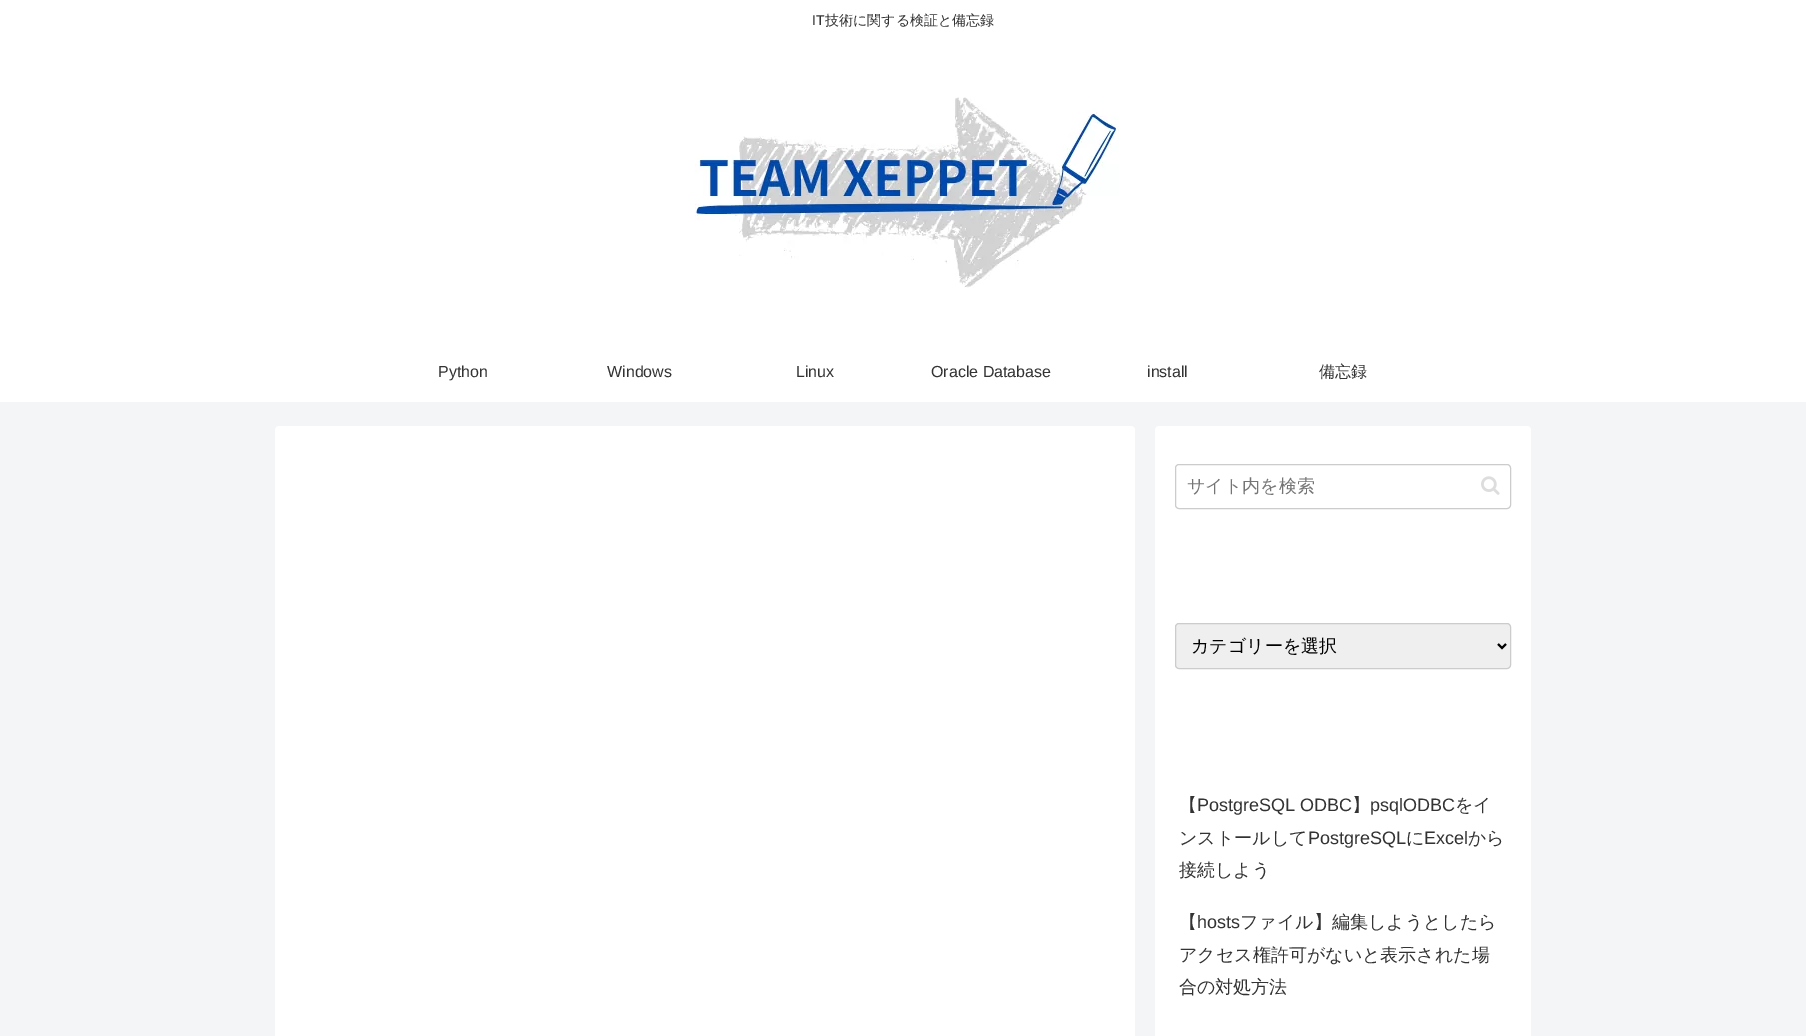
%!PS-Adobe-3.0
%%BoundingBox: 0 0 1806 1036
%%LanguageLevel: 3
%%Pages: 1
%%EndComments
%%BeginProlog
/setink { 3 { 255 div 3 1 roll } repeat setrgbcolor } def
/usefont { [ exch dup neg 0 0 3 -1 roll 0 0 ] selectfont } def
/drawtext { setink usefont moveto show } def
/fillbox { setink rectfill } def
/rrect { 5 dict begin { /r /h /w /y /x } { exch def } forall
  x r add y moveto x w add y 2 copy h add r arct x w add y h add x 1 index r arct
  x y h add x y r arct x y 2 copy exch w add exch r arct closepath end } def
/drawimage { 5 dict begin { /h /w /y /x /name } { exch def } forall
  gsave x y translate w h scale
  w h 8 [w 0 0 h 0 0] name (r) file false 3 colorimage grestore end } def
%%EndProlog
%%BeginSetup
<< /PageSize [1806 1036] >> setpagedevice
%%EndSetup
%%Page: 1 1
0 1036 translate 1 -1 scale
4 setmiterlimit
0 0 1806 1036 244 245 247 fillbox
0 0 1806 402 255 255 255 fillbox
(IT) 812 25 /LiberationSans-Regular 14 51 51 51 drawtext
(技術に関する検証と備忘録) 825 25 /WenQuanYiZenHei-Medium 14 51 51 51 drawtext
(assets/img1.rgb) 695 97 424 191 drawimage
(Python) 438 377 /LiberationSans-Regular 16 51 51 51 drawtext
(Windows) 607 377 /LiberationSans-Regular 16 51 51 51 drawtext
(Linux) 796 377 /LiberationSans-Regular 16 51 51 51 drawtext
(Oracle Database) 931 377 /LiberationSans-Regular 16 51 51 51 drawtext
(install) 1147 377 /LiberationSans-Regular 16 51 51 51 drawtext
(備忘録) 1319 377 /WenQuanYiZenHei-Medium 16 51 51 51 drawtext
255 255 255 setink
275 426 860 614 4 rrect fill
1155 426 376 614 4 rrect fill
204 204 204 setink
1175.5 464.5 335 44 3.5 rrect stroke
(サイト内を検索) 1187 492 /WenQuanYiZenHei-Medium 18 117 117 117 drawtext
(assets/img2.rgb) 1481 476 19 19 drawimage
239 239 239 setink
1175.5 623.5 335 45 3.5 rrect gsave fill grestore
204 204 204 setink
stroke
0 0 0 setink
2 setlinewidth
1498 644 moveto 1502 648 lineto 1506 644 lineto stroke
(カテゴリーを選択) 1191 652 /WenQuanYiZenHei-Medium 18 0 0 0 drawtext
(【) 1179 811 /WenQuanYiZenHei-Medium 18 51 51 51 drawtext
(PostgreSQL ODBC) 1197 811 /LiberationSans-Regular 18 51 51 51 drawtext
(】) 1352 811 /WenQuanYiZenHei-Medium 18 51 51 51 drawtext
(psqlODBC) 1370 811 /LiberationSans-Regular 18 51 51 51 drawtext
(をイ) 1455 811 /WenQuanYiZenHei-Medium 18 51 51 51 drawtext
(ンストールして) 1179 844 /WenQuanYiZenHei-Medium 18 51 51 51 drawtext
(PostgreSQL) 1308 844 /LiberationSans-Regular 18 51 51 51 drawtext
(に) 1406 844 /WenQuanYiZenHei-Medium 18 51 51 51 drawtext
(Excel) 1424 844 /LiberationSans-Regular 18 51 51 51 drawtext
(から) 1468 844 /WenQuanYiZenHei-Medium 18 51 51 51 drawtext
(接続しよう) 1179 876 /WenQuanYiZenHei-Medium 18 51 51 51 drawtext
(【) 1179 928 /WenQuanYiZenHei-Medium 18 51 51 51 drawtext
(hosts) 1197 928 /LiberationSans-Regular 18 51 51 51 drawtext
(ファイル】編集しようとしたら) 1240 928 /WenQuanYiZenHei-Medium 18 51 51 51 drawtext
(アクセス権許可がないと表示された場) 1179 961 /WenQuanYiZenHei-Medium 18 51 51 51 drawtext
(合の対処方法) 1179 993 /WenQuanYiZenHei-Medium 18 51 51 51 drawtext
showpage
%%EOF
